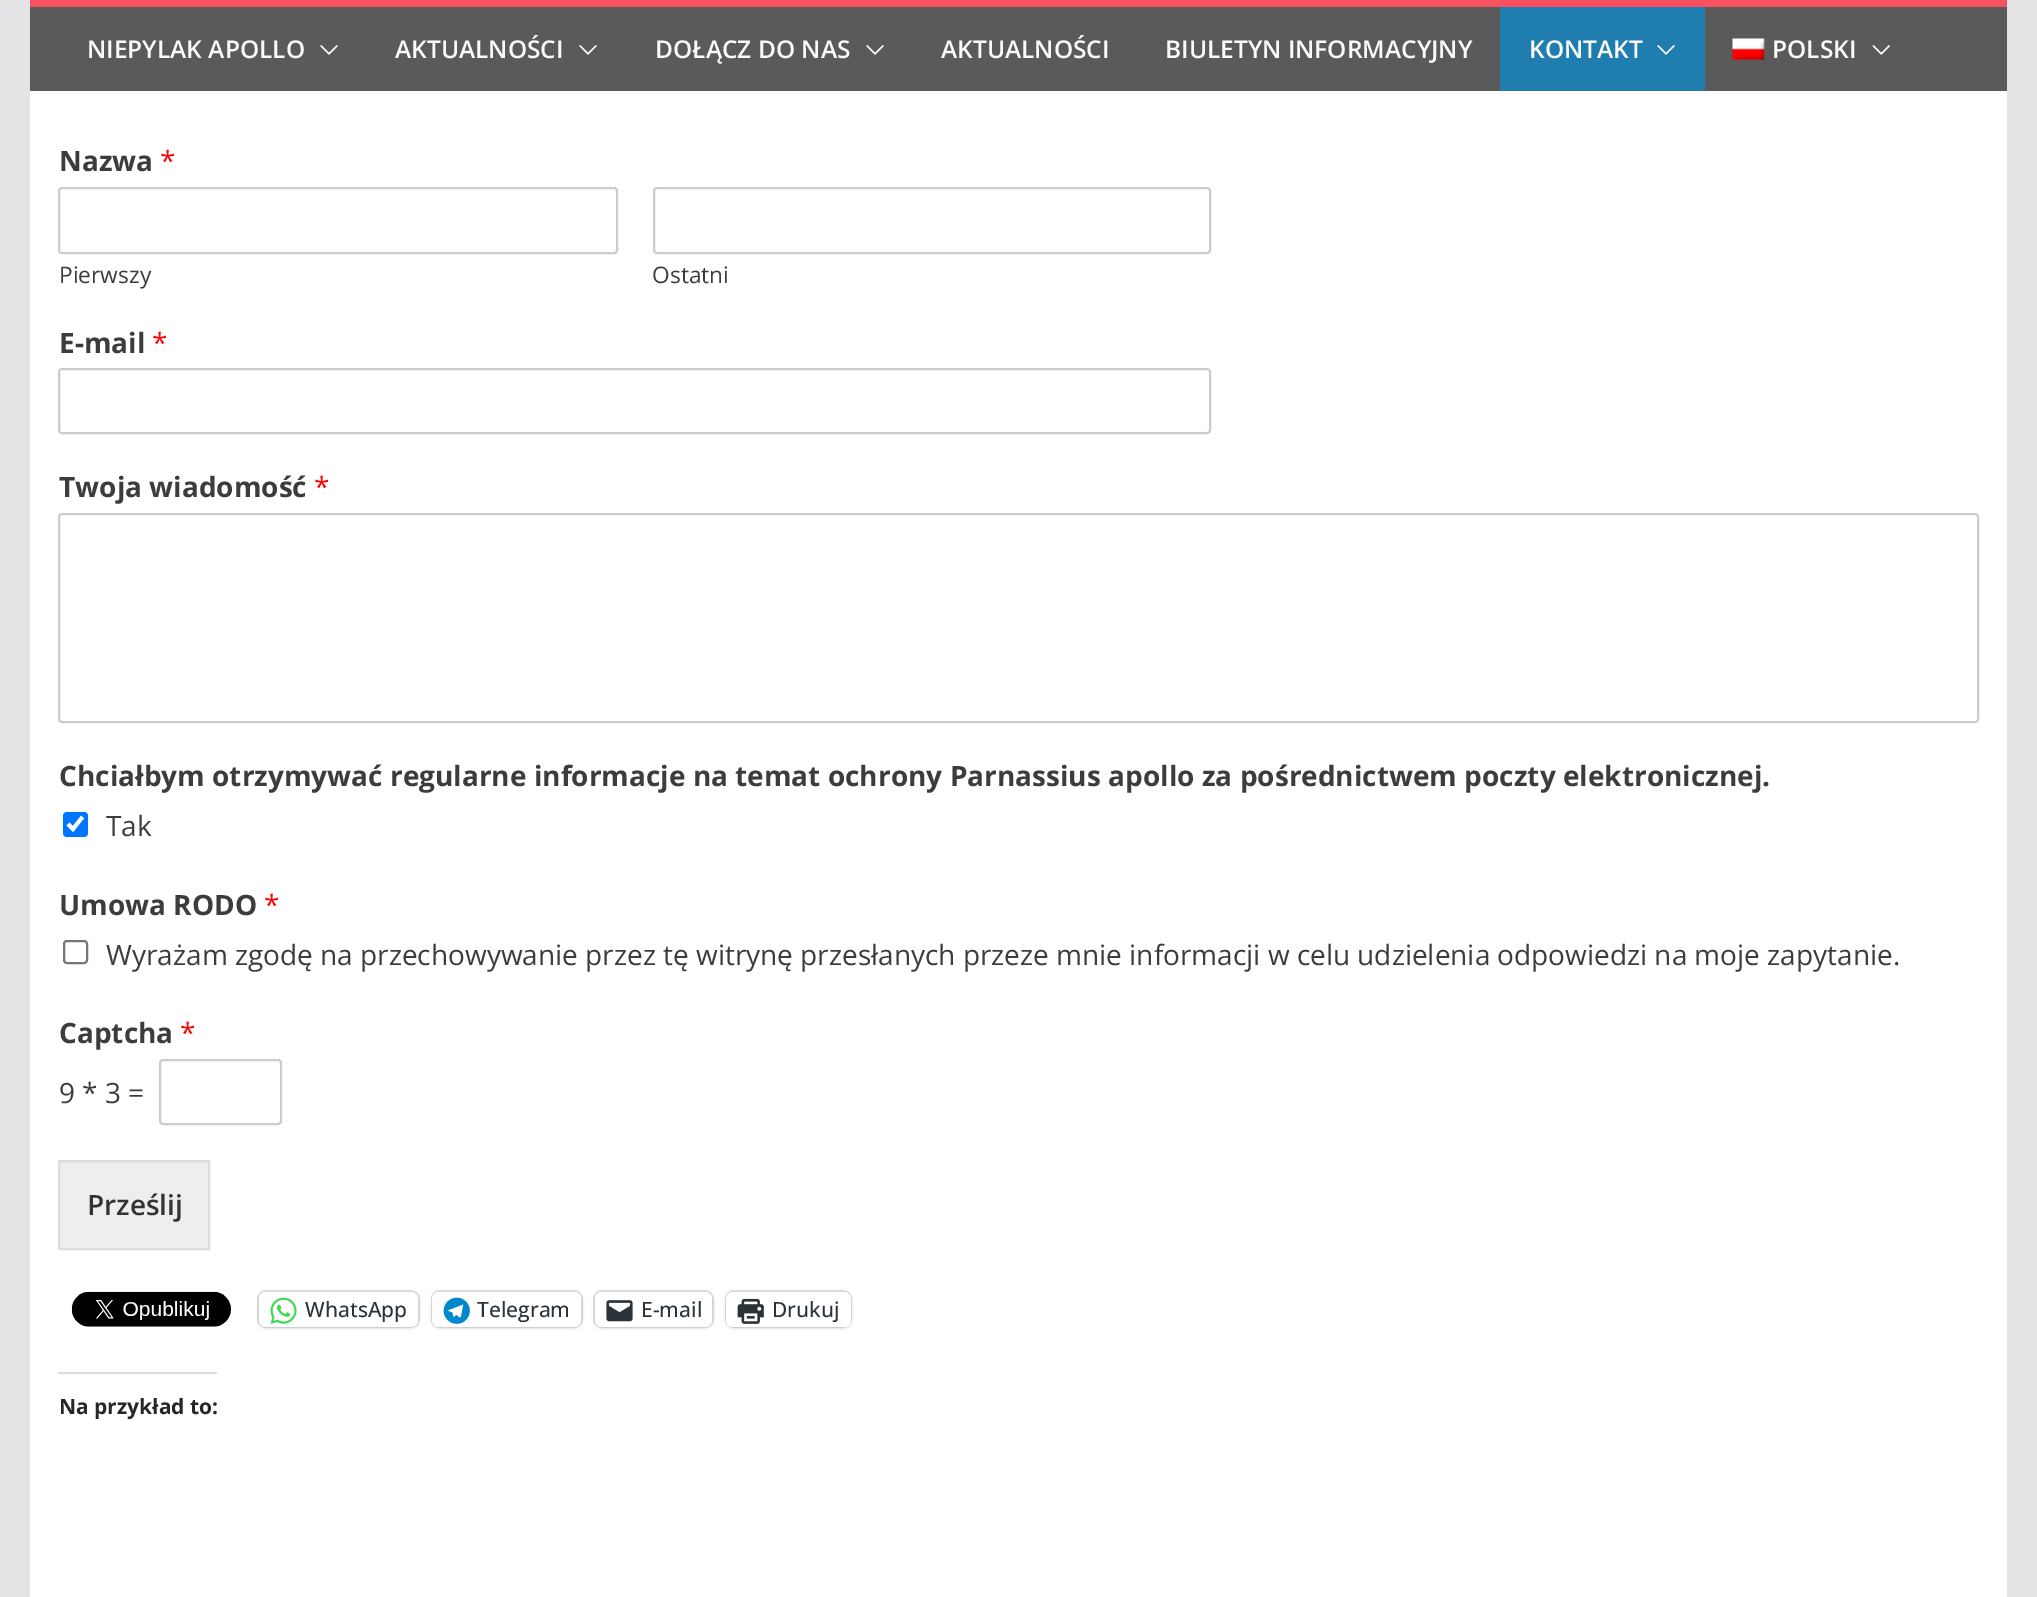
%!PS-Adobe-3.0
%%BoundingBox: 0 0 2037 1597
%%LanguageLevel: 3
%%Pages: 1
%%EndComments
%%BeginProlog
/setink { 3 { 255 div 3 1 roll } repeat setrgbcolor } def
/usefont { [ exch dup neg 0 0 3 -1 roll 0 0 ] selectfont } def
/drawtext { setink usefont moveto show } def
/fillbox { setink rectfill } def
/setalpha { dup .setfillconstantalpha .setstrokeconstantalpha } def
/rrect { 5 dict begin { /r /h /w /y /x } { exch def } forall
  x r add y moveto x w add y 2 copy h add r arct x w add y h add x 1 index r arct
  x y h add x y r arct x y 2 copy exch w add exch r arct closepath end } def
/softshadow { 12 dict begin { /a /b /q /h /w /y /x } { exch def } forall gsave /was 0 def
  9 -2 -9 { dup b mul 4 div /e exch def 1 sub .425 mul 2.718 exch exp 1 add a .99 .min exch div /now exch def
    1 1 now sub 1 was sub div sub setalpha /was now def
    w h .min e 2 mul add 0 gt { x e sub y e sub w e 2 mul add h e 2 mul add
      q e add b .6 mul add w h .min 2 div e add .min 0 .max rrect fill } if } for grestore end } def
/drawimage { 5 dict begin { /h /w /y /x /name } { exch def } forall
  gsave x y translate w h scale
  w h 8 [w 0 0 h 0 0] name (r) file false 3 colorimage grestore end } def
%%EndProlog
%%BeginSetup
<< /PageSize [2037 1597] /PageUsesTransparency true >> setpagedevice
%%EndSetup
%%Page: 1 1
0 .pushpdf14devicefilter
0 1597 translate 1 -1 scale
4 setmiterlimit
0 0 2037 1597 228 228 231 fillbox
30 7 1977 84 91 90 90 fillbox
30 0 1977 7 246 81 97 fillbox
(NIEPYLAK APOLLO) 87 58 /OpenSans-SemiBold 24.5 250 250 250 drawtext
(assets/img1.rgb) 320 45 18 10 drawimage
(AKTUALNOŚCI) 395 58 /OpenSans-SemiBold 24.5 250 250 250 drawtext
(assets/img1.rgb) 579 45 18 10 drawimage
(DOŁĄCZ DO NAS) 655 58 /OpenSans-SemiBold 24.5 250 250 250 drawtext
(assets/img1.rgb) 866 45 18 10 drawimage
(AKTUALNOŚCI) 941 58 /OpenSans-SemiBold 24.5 250 250 250 drawtext
(BIULETYN INFORMACYJNY) 1165 58 /OpenSans-SemiBold 24.5 250 250 250 drawtext
1500 7 205 84 32 125 175 fillbox
(KONTAKT) 1529 58 /OpenSans-SemiBold 24.5 250 250 250 drawtext
(assets/img2.rgb) 1657 45 18 10 drawimage
(assets/img3.rgb) 1732 38 33 22 drawimage
(POLSKI) 1772 58 /OpenSans-SemiBold 24.5 250 250 250 drawtext
(assets/img4.rgb) 1872 45 18 10 drawimage
30 91 1977 1506 255 255 255 fillbox
(Nazwa) 59 171 /OpenSans-Bold 28 60 60 59 drawtext
(*) 160 171 /OpenSans-Regular 28 255 0 0 drawtext
204 204 204 setink
2 setlinewidth
59 188 558 65 3 rrect stroke
(Pierwszy) 59 283 /OpenSans-Regular 22.75 60 60 59 drawtext
204 204 204 setink
654 188 556 65 3 rrect stroke
(Ostatni) 652 283 /OpenSans-Regular 22.75 60 60 59 drawtext
(E-mail) 59 353 /OpenSans-Bold 28 60 60 59 drawtext
(*) 152 353 /OpenSans-Regular 28 255 0 0 drawtext
204 204 204 setink
59 369 1151 64 3 rrect stroke
(Twoja wiadomość) 59 497 /OpenSans-Bold 28 60 60 59 drawtext
(*) 314 497 /OpenSans-Regular 28 255 0 0 drawtext
204 204 204 setink
59 514 1919 208 3 rrect stroke
(Chciałbym otrzymywać regularne informacje na temat ochrony Parnassius apollo za pośrednictwem poczty elektronicznej.) 59 786 /OpenSans-Bold 28 60 60 59 drawtext
0 117 255 setink
63 812 25 25 4 rrect fill
255 255 255 setink
3.9 setlinewidth
68 824 moveto 73 829 lineto 82.5 817 lineto stroke
(Tak) 106 836 /OpenSans-Regular 28 60 60 59 drawtext
(Umowa RODO) 59 915 /OpenSans-Bold 28 60 60 59 drawtext
(*) 264 915 /OpenSans-Regular 28 255 0 0 drawtext
118 118 118 setink
2 setlinewidth
64 941 23 22 3 rrect stroke
(Wyrażam zgodę na przechowywanie przez tę witrynę przesłanych przeze mnie informacji w celu udzielenia odpowiedzi na moje zapytanie.) 106 965 /OpenSans-Regular 28 60 60 59 drawtext
(Captcha) 59 1043 /OpenSans-Bold 28 60 60 59 drawtext
(*) 180 1043 /OpenSans-Regular 28 255 0 0 drawtext
(9 * 3 =) 59 1103 /OpenSans-Regular 28 60 60 59 drawtext
204 204 204 setink
160 1060 121 64 3 rrect stroke
238 238 238 setink
59 1161 moveto 209 1161 lineto 209 1249 lineto 59 1249 lineto closepath gsave fill grestore
221 221 221 setink
stroke
(Prześlij) 87 1215 /OpenSans-SemiBold 28 51 51 51 drawtext
(assets/img5.rgb) 71 1291 160 36 drawimage
224 224 224 setink
258 1291 161 36 8 rrect stroke
0 0 0 setink
259 1293 159 35 7 2 0.12 softshadow
255 255 255 setink
259 1292 159 35 7 rrect fill
(assets/img6.rgb) 270 1297 27 27 drawimage
(WhatsApp) 305 1317 /OpenSans-Medium 21 44 51 56 drawtext
224 224 224 setink
432 1291 150 36 8 rrect stroke
0 0 0 setink
432 1293 149 35 7 2 0.12 softshadow
255 255 255 setink
432 1292 149 35 7 rrect fill
(assets/img7.rgb) 443 1297 27 27 drawimage
(Telegram) 477 1317 /OpenSans-Medium 21 44 51 56 drawtext
224 224 224 setink
594 1291 119 36 8 rrect stroke
0 0 0 setink
595 1293 117 35 7 2 0.12 softshadow
255 255 255 setink
595 1292 117 35 7 rrect fill
(assets/img8.rgb) 606 1300 27 22 drawimage
(E-mail) 641 1317 /OpenSans-Medium 21 44 51 56 drawtext
224 224 224 setink
726 1291 125 36 8 rrect stroke
0 0 0 setink
726 1293 125 35 7 2 0.12 softshadow
255 255 255 setink
726 1292 125 35 7 rrect fill
(assets/img9.rgb) 737 1298 27 26 drawimage
(Drukuj) 772 1317 /OpenSans-Medium 21 44 51 56 drawtext
58 1372 159 2 220 220 222 fillbox
(Na przykład to:) 59 1414 /OpenSans-Bold 21 39 39 42 drawtext
.poppdf14devicefilter showpage
%%EOF
